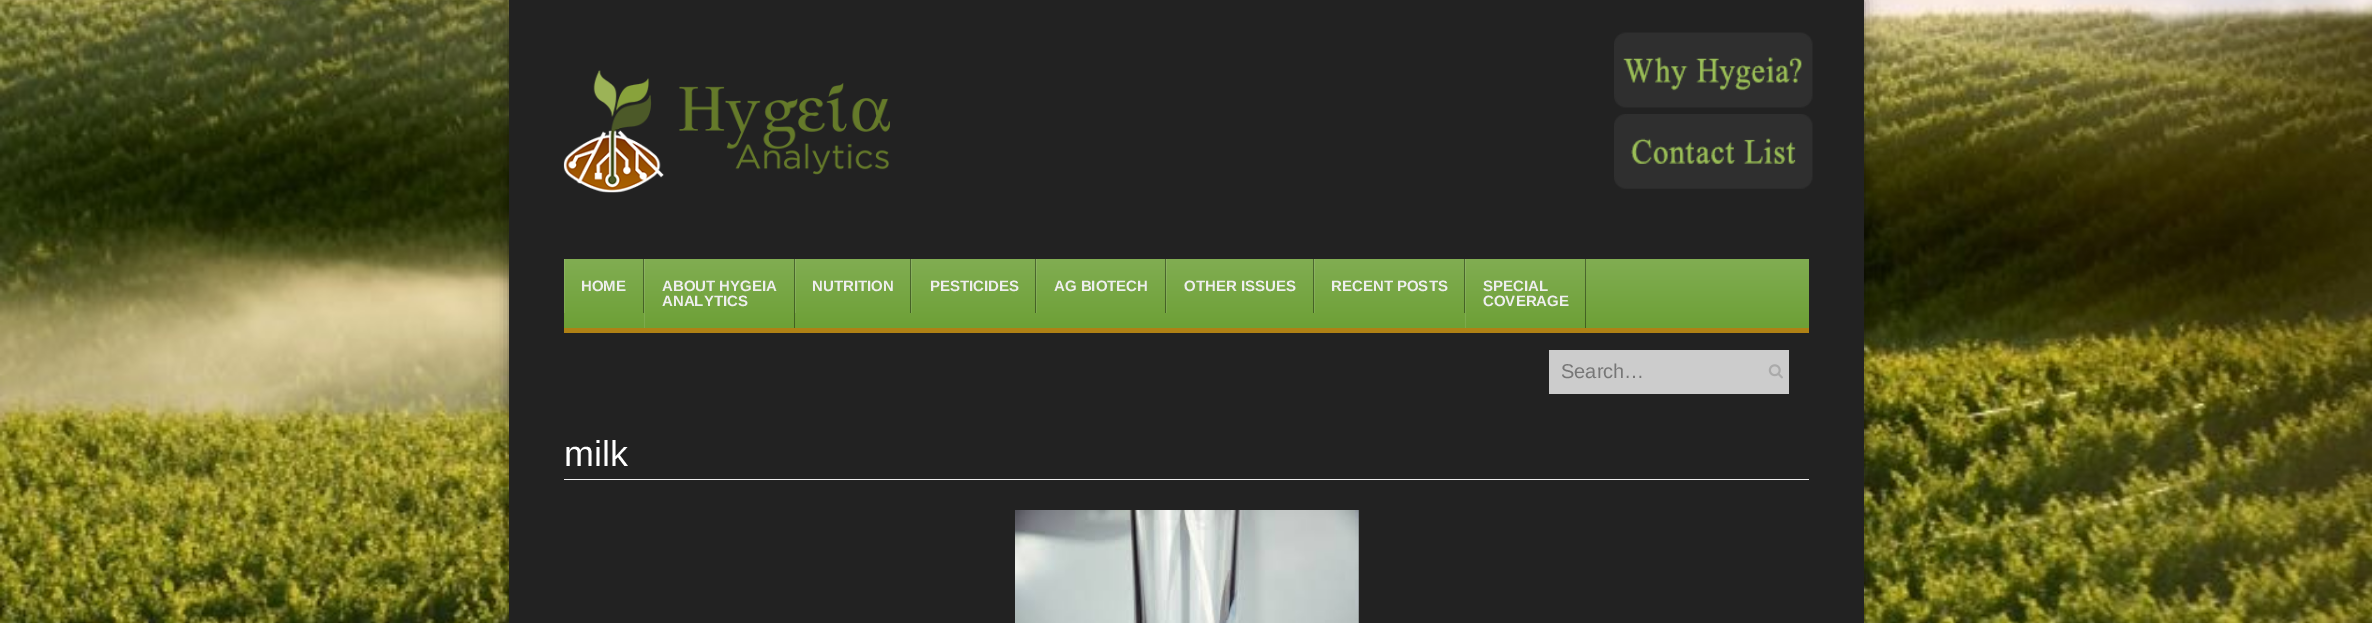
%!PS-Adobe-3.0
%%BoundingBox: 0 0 2372 623
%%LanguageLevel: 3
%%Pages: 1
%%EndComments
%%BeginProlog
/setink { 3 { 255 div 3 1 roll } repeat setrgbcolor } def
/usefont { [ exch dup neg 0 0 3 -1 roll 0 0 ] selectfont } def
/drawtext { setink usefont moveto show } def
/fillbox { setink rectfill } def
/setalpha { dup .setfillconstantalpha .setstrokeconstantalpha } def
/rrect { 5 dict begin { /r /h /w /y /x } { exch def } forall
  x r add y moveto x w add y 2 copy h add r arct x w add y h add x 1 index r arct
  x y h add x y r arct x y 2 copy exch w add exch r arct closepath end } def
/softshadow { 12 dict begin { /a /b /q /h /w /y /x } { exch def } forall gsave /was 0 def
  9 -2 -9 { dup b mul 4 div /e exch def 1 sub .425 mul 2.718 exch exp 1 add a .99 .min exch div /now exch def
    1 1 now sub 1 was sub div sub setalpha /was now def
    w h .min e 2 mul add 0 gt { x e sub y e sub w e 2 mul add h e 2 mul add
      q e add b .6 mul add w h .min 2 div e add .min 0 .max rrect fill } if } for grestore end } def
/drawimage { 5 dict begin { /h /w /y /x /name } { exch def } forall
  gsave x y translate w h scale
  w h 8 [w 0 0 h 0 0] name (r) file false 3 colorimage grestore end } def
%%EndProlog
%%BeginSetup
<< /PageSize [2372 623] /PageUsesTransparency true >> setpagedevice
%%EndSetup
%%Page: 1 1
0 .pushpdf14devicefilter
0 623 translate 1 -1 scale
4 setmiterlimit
0 0 2372 623 255 255 255 fillbox
(assets/img1.rgb) 0 0 2372 623 drawimage
0 0 0 setink
509 0 1355 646 0 7.5 0.4 softshadow
509 0 1355 623 34 34 34 fillbox
(assets/img2.rgb) 563 70 327 123 drawimage
(assets/img3.rgb) 1614 32 199 76 drawimage
(assets/img4.rgb) 1614 114 199 75 drawimage
gsave 564 259 moveto 1809 259 lineto 1809 328 lineto 564 328 lineto closepath clip newpath
<< /ShadingType 2 /ColorSpace /DeviceRGB /Coords [1186 259 1186 328] /Extend [true true] /Function << /FunctionType 2 /Domain [0 1] /C0 [0.506 0.678 0.322] /C1 [0.427 0.627 0.212] /N 1 >> >> shfill grestore
564 328 1245 5 175 129 21 fillbox
0.4 setalpha
643 259 1 54 0 0 0 fillbox
0.1 setalpha
564 259 1 54 255 255 255 fillbox
1 setalpha
(HOME) 581 291 /LiberationSans-Bold 15 238 238 238 drawtext
0.4 setalpha
794 259 1 69 0 0 0 fillbox
0.1 setalpha
644 259 1 69 255 255 255 fillbox
1 setalpha
(ABOUT HYGEIA) 662 291 /LiberationSans-Bold 15 238 238 238 drawtext
(ANALYTICS) 662 306 /LiberationSans-Bold 15 238 238 238 drawtext
0.4 setalpha
910 259 1 54 0 0 0 fillbox
0.1 setalpha
795 259 1 54 255 255 255 fillbox
1 setalpha
(NUTRITION) 812 291 /LiberationSans-Bold 15 238 238 238 drawtext
0.4 setalpha
1035 259 1 54 0 0 0 fillbox
0.1 setalpha
911 259 1 54 255 255 255 fillbox
1 setalpha
(PESTICIDES) 930 291 /LiberationSans-Bold 15 238 238 238 drawtext
0.4 setalpha
1165 259 1 54 0 0 0 fillbox
0.1 setalpha
1036 259 1 54 255 255 255 fillbox
1 setalpha
(AG BIOTECH) 1054 291 /LiberationSans-Bold 15 238 238 238 drawtext
0.4 setalpha
1313 259 1 54 0 0 0 fillbox
0.1 setalpha
1166 259 1 54 255 255 255 fillbox
1 setalpha
(OTHER ISSUES) 1184 291 /LiberationSans-Bold 15 238 238 238 drawtext
0.4 setalpha
1464 259 1 54 0 0 0 fillbox
0.1 setalpha
1314 259 1 54 255 255 255 fillbox
1 setalpha
(RECENT POSTS) 1331 291 /LiberationSans-Bold 15 238 238 238 drawtext
0.4 setalpha
1585 259 1 69 0 0 0 fillbox
0.1 setalpha
1465 259 1 69 255 255 255 fillbox
1 setalpha
(SPECIAL) 1483 291 /LiberationSans-Bold 15 238 238 238 drawtext
(COVERAGE) 1483 306 /LiberationSans-Bold 15 238 238 238 drawtext
1549 350 240 44 204 204 204 fillbox
(Search…) 1561 378 /LiberationSans-Regular 20 119 119 119 drawtext
(assets/img5.rgb) 1768 364 15 15 drawimage
564 479 1245 1 238 238 238 fillbox
(milk) 564 466 /LiberationSans-Regular 36 255 255 255 drawtext
(assets/img6.rgb) 1015 510 344 113 drawimage
.poppdf14devicefilter showpage
%%EOF
